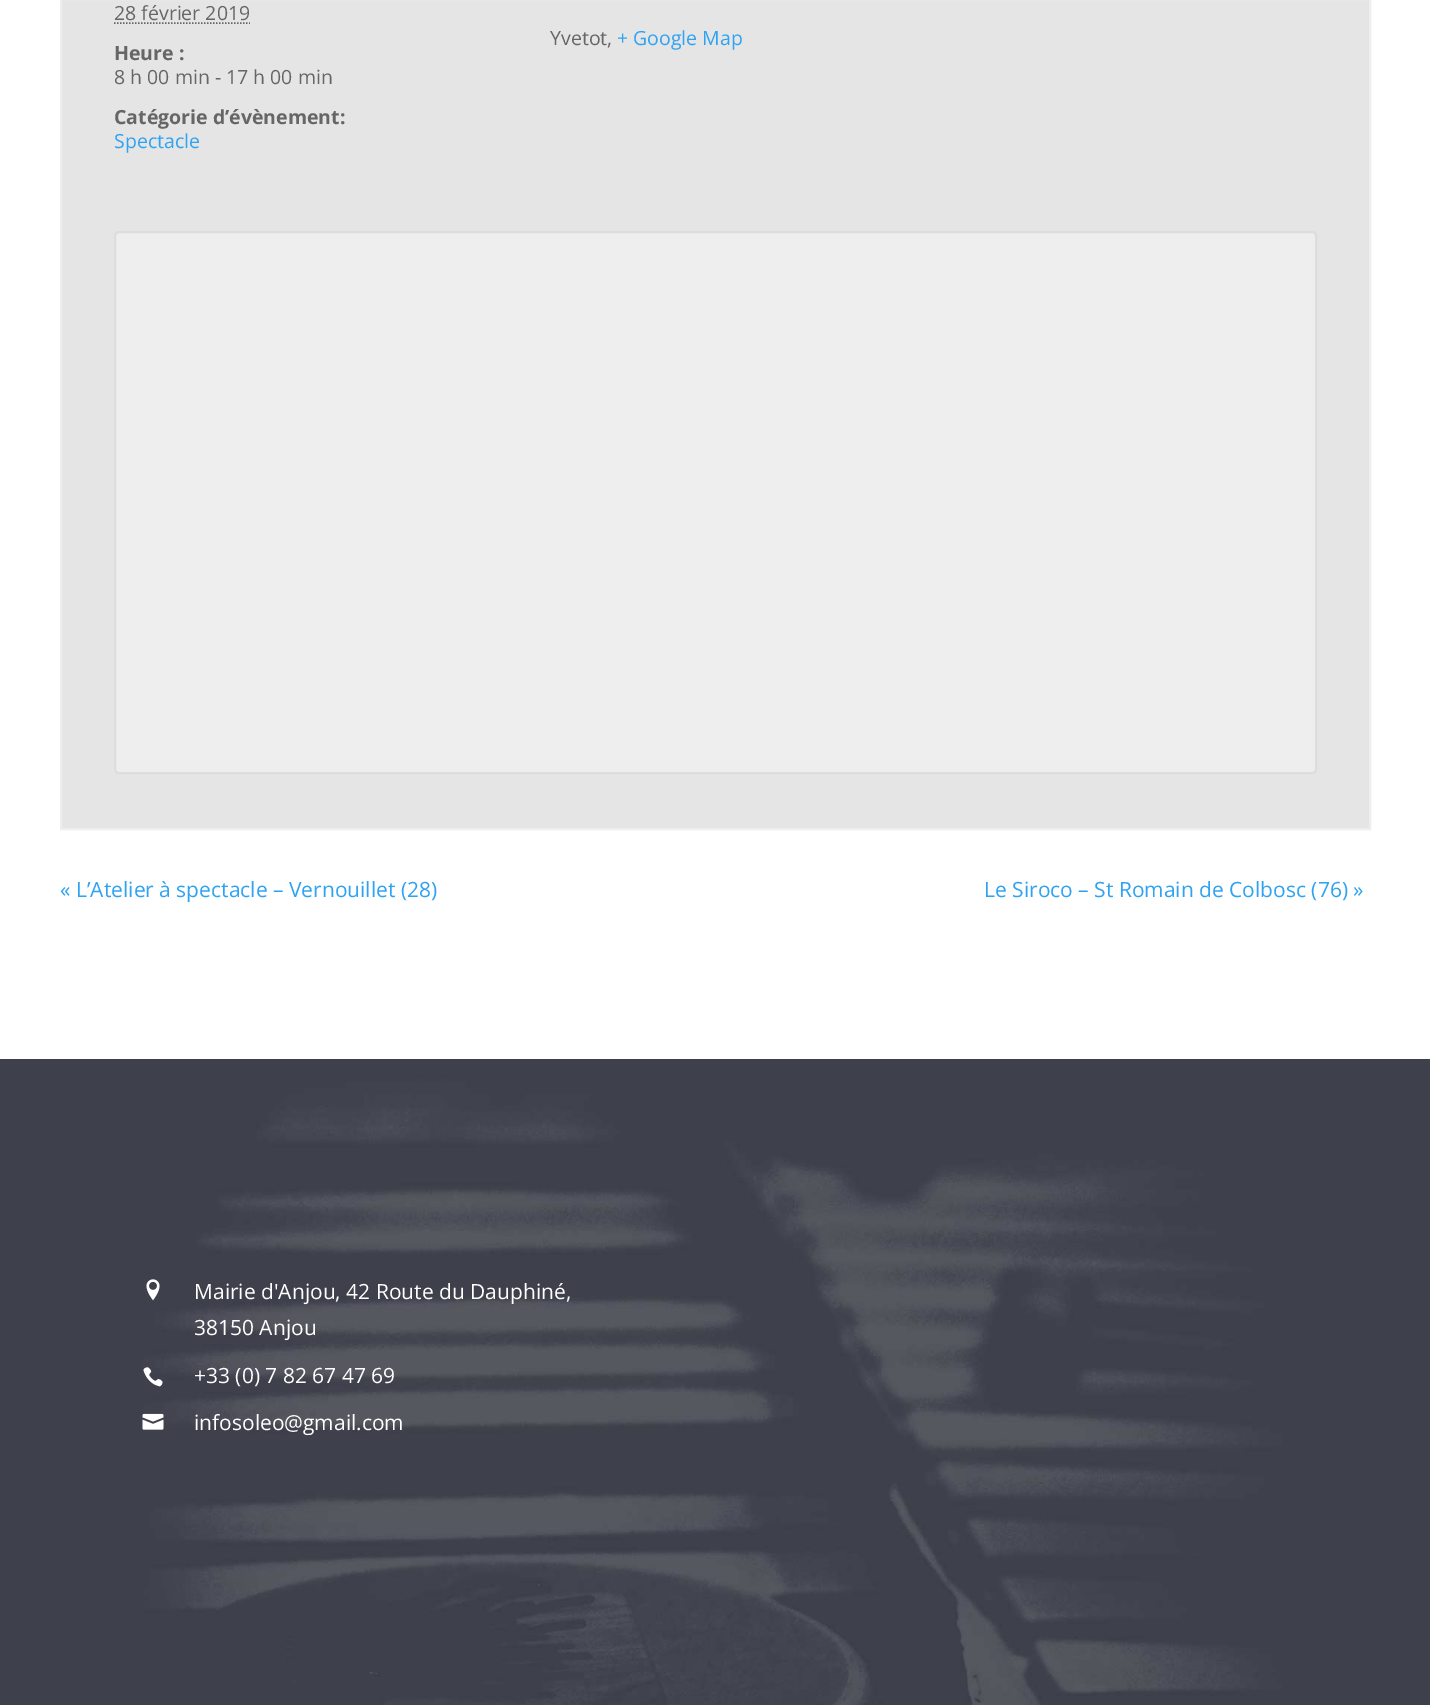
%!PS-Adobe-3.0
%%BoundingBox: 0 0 1430 1705
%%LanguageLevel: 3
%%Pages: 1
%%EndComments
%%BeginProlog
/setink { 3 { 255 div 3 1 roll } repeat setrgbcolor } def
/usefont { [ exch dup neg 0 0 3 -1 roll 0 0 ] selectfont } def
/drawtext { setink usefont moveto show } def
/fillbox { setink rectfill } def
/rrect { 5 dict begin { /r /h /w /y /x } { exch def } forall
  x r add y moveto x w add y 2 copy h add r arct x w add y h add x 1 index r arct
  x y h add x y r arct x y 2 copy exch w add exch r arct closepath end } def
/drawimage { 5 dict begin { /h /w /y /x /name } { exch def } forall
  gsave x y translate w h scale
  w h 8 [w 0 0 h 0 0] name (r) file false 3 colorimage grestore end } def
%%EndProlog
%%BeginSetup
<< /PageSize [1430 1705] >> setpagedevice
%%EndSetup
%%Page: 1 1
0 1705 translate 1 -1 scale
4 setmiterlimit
0 0 1430 1705 255 255 255 fillbox
229 229 229 setink
61 -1 moveto 1370 -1 lineto 1370 829 lineto 61 829 lineto closepath gsave fill grestore
238 238 238 setink
2 setlinewidth
stroke
(28 février 2019) 114 20 /OpenSans-Regular 19.5 102 102 102 drawtext
1.5 setlinewidth
[1.5 1.5] 0 setdash
114 23 moveto 250 23 lineto stroke
(Heure :) 114 60 /OpenSans-Bold 19.5 102 102 102 drawtext
(8 h 00 min - 17 h 00 min) 114 84 /OpenSans-Regular 19.5 102 102 102 drawtext
(Catégorie d’évènement:) 114 124 /OpenSans-Bold 19.5 102 102 102 drawtext
(Spectacle) 114 148 /OpenSans-Regular 19.5 46 163 242 drawtext
(Yvetot,) 550 45 /OpenSans-Regular 19.5 102 102 102 drawtext
(+ Google Map) 617 45 /OpenSans-Regular 19.5 46 163 242 drawtext
238 238 238 setink
115 232 1201 541 4 rrect gsave fill grestore
221 221 221 setink
2 setlinewidth
[] 0 setdash
stroke
(« L’Atelier à spectacle – Vernouillet \(28\)) 60 897 /OpenSans-Regular 21 46 163 242 drawtext
(Le Siroco – St Romain de Colbosc \(76\) ») 984 897 /OpenSans-Regular 21 46 163 242 drawtext
(assets/img1.rgb) 0 1059 1430 646 drawimage
(assets/img2.rgb) 146 1279 14 22 drawimage
(Mairie d'Anjou, 42 Route du Dauphiné,) 194 1299 /OpenSans-Regular 21 255 255 255 drawtext
(38150 Anjou) 194 1335 /OpenSans-Regular 21 255 255 255 drawtext
(assets/img3.rgb) 143 1367 20 20 drawimage
(+33 \(0\) 7 82 67 47 69) 194 1383 /OpenSans-Regular 21 255 255 255 drawtext
(assets/img4.rgb) 142 1413 22 17 drawimage
(infosoleo@gmail.com) 194 1430 /OpenSans-Regular 21 255 255 255 drawtext
showpage
%%EOF
